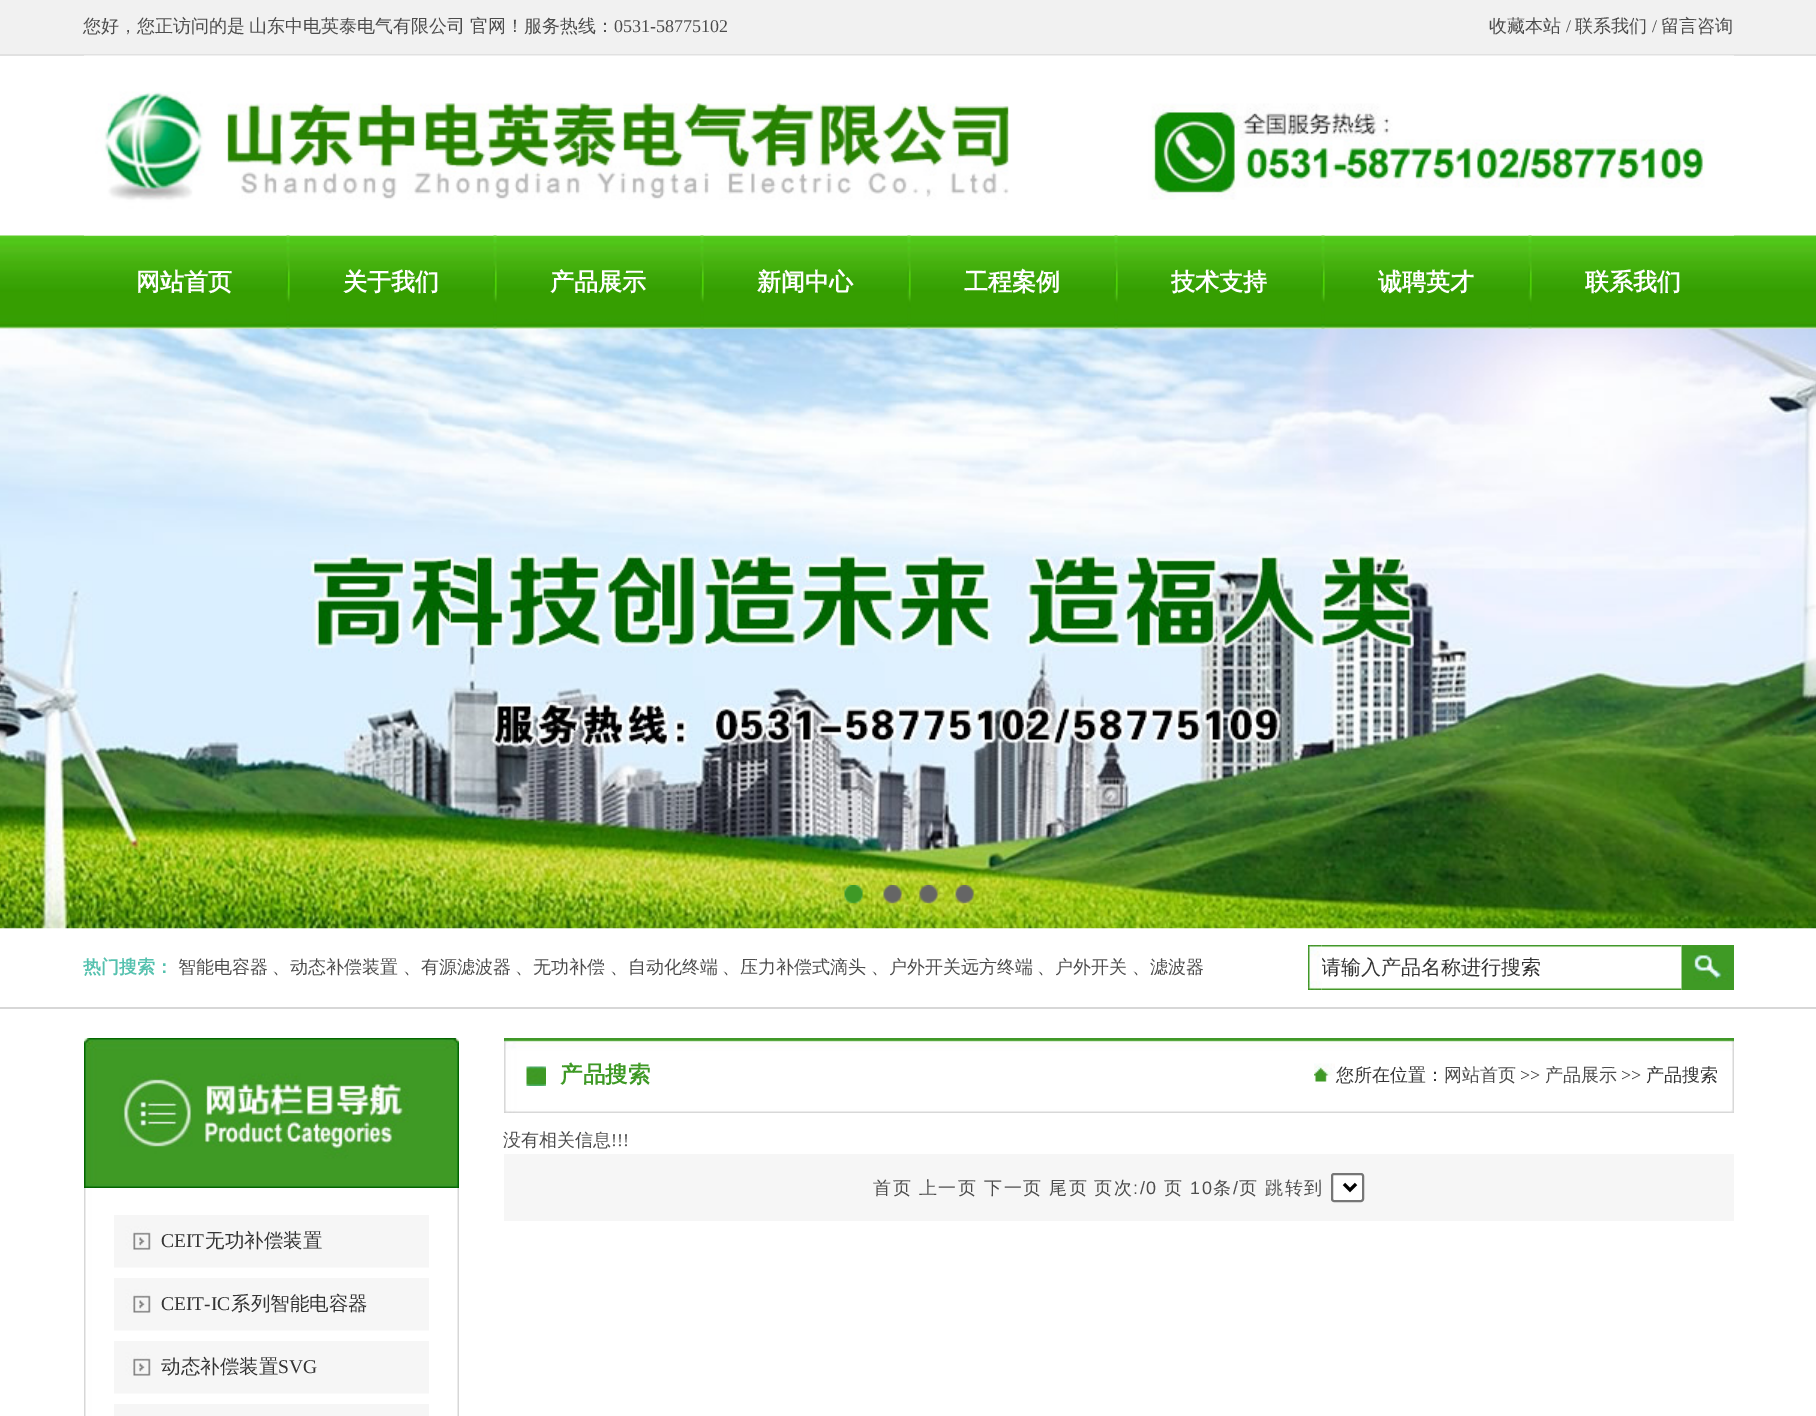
%!PS-Adobe-3.0
%%BoundingBox: 0 0 1816 1416
%%LanguageLevel: 3
%%Pages: 1
%%EndComments
%%BeginProlog
/setink { 3 { 255 div 3 1 roll } repeat setrgbcolor } def
/usefont { [ exch dup neg 0 0 3 -1 roll 0 0 ] selectfont } def
/drawtext { setink usefont moveto show } def
/fillbox { setink rectfill } def
/rrect { 5 dict begin { /r /h /w /y /x } { exch def } forall
  x r add y moveto x w add y 2 copy h add r arct x w add y h add x 1 index r arct
  x y h add x y r arct x y 2 copy exch w add exch r arct closepath end } def
/drawimage { 5 dict begin { /h /w /y /x /name } { exch def } forall
  gsave x y translate w h scale
  w h 8 [w 0 0 h 0 0] name (r) file false 3 colorimage grestore end } def
%%EndProlog
%%BeginSetup
<< /PageSize [1816 1416] >> setpagedevice
%%EndSetup
%%Page: 1 1
0 1416 translate 1 -1 scale
4 setmiterlimit
0 0 1816 1416 255 255 255 fillbox
0 0 1816 54 241 241 241 fillbox
0 54 1816 2 225 225 225 fillbox
/WenQuanYiZenHei-Medium 18 usefont
76 76 76 setink
83 32 moveto -1 0 32 (您好，您正访问的是 山东中电英泰电气有限公司 官网！) widthshow
(服务热线：) 524 32 /WenQuanYiZenHei-Medium 18 76 76 76 drawtext
(0531-58775102) 614 32 /LiberationSerif-Regular 18 76 76 76 drawtext
(收藏本站) 1489 32 /WenQuanYiZenHei-Medium 18 76 76 76 drawtext
(/) 1566 32 /LiberationSerif-Regular 18 76 76 76 drawtext
(联系我们) 1575 32 /WenQuanYiZenHei-Medium 18 76 76 76 drawtext
(/) 1652 32 /LiberationSerif-Regular 18 76 76 76 drawtext
(留言咨询) 1661 32 /WenQuanYiZenHei-Medium 18 76 76 76 drawtext
(assets/img3.rgb) 0 235 1816 94 drawimage
(assets/img1.rgb) 84 55 960 181 drawimage
(assets/img2.rgb) 1044 55 690 181 drawimage
(网站首页) 136 290 /WenQuanYiZenHei-Bold 24 255 255 255 drawtext
(assets/img4.rgb) 286 235 4 94 drawimage
(关于我们) 343 290 /WenQuanYiZenHei-Bold 24 255 255 255 drawtext
(assets/img5.rgb) 493 235 4 94 drawimage
(产品展示) 550 290 /WenQuanYiZenHei-Bold 24 255 255 255 drawtext
(assets/img6.rgb) 700 235 4 94 drawimage
(新闻中心) 757 290 /WenQuanYiZenHei-Bold 24 255 255 255 drawtext
(assets/img7.rgb) 907 235 4 94 drawimage
(工程案例) 964 290 /WenQuanYiZenHei-Bold 24 255 255 255 drawtext
(assets/img8.rgb) 1114 235 4 94 drawimage
(技术支持) 1171 290 /WenQuanYiZenHei-Bold 24 255 255 255 drawtext
(assets/img9.rgb) 1321 235 4 94 drawimage
(诚聘英才) 1378 290 /WenQuanYiZenHei-Bold 24 255 255 255 drawtext
(assets/img10.rgb) 1528 235 4 94 drawimage
(联系我们) 1585 290 /WenQuanYiZenHei-Bold 24 255 255 255 drawtext
(assets/img11.rgb) 0 328 1816 601 drawimage
(assets/img12.rgb) 844 885 19 19 drawimage
(assets/img13.rgb) 883 885 19 19 drawimage
(assets/img14.rgb) 919 885 19 19 drawimage
(assets/img15.rgb) 955 885 19 19 drawimage
(热门搜索：) 83 973 /WenQuanYiZenHei-Bold 18 84 193 174 drawtext
(智能电容器) 178 973 /WenQuanYiZenHei-Medium 18 76 76 76 drawtext
(、动态补偿装置) 272 973 /WenQuanYiZenHei-Medium 18 76 76 76 drawtext
(、有源滤波器) 403 973 /WenQuanYiZenHei-Medium 18 76 76 76 drawtext
(、无功补偿) 515 973 /WenQuanYiZenHei-Medium 18 76 76 76 drawtext
(、自动化终端) 610 973 /WenQuanYiZenHei-Medium 18 76 76 76 drawtext
(、压力补偿式滴头) 722 973 /WenQuanYiZenHei-Medium 18 76 76 76 drawtext
(、户外开关远方终端) 871 973 /WenQuanYiZenHei-Medium 18 76 76 76 drawtext
(、户外开关) 1037 973 /WenQuanYiZenHei-Medium 18 76 76 76 drawtext
(、滤波器) 1132 973 /WenQuanYiZenHei-Medium 18 76 76 76 drawtext
(assets/img17.rgb) 1321 945 361 45 drawimage
(assets/img16.rgb) 1308 945 14 45 drawimage
1322 948 360 39 255 255 255 fillbox
gsave
1322 948 360 39 rectclip
(请输入产品名称进行搜索) 1321 974 /WenQuanYiZenHei-Medium 20 51 51 51 drawtext
grestore
(assets/img18.rgb) 1681 945 53 45 drawimage
0 1007 1816 2 215 215 215 fillbox
(assets/img19.rgb) 504 1038 1230 75 drawimage
(assets/img20.rgb) 526 1066 20 20 drawimage
(产品搜索) 560 1082 /WenQuanYiZenHei-Bold 22.5 62 153 37 drawtext
(assets/img21.rgb) 1314 1063 21 19 drawimage
(您所在位置：) 1336 1081 /WenQuanYiZenHei-Medium 18 51 51 51 drawtext
(网站首页) 1444 1081 /WenQuanYiZenHei-Medium 18 76 76 76 drawtext
(>>) 1520 1081 /LiberationSerif-Regular 18 51 51 51 drawtext
(产品展示) 1545 1081 /WenQuanYiZenHei-Medium 18 76 76 76 drawtext
(>>) 1621 1081 /LiberationSerif-Regular 18 51 51 51 drawtext
(产品搜索) 1646 1081 /WenQuanYiZenHei-Medium 18 51 51 51 drawtext
(没有相关信息) 503 1146 /WenQuanYiZenHei-Medium 18 76 76 76 drawtext
(!!!) 611 1146 /LiberationSerif-Regular 18 76 76 76 drawtext
504 1154 1230 67 246 246 246 fillbox
/WenQuanYiZenHei-Medium 18 usefont
76 76 76 setink
873 1194 moveto 1.5 0 (首页 上一页) ashow
984 1194 moveto 1.5 0 (下一页 尾页) ashow
1094 1194 moveto 1.5 0 (页次) ashow
/LiberationSans-Regular 18 usefont
1133 1194 moveto 1.5 0 (:/0) ashow
/WenQuanYiZenHei-Medium 18 usefont
1164 1194 moveto 1.5 0 (页) ashow
/LiberationSans-Regular 18 usefont
1190 1194 moveto 1.5 0 (10) ashow
/WenQuanYiZenHei-Medium 18 usefont
1213 1194 moveto 1.5 0 (条) ashow
/LiberationSans-Regular 18 usefont
1233 1194 moveto 1.5 0 (/) ashow
/WenQuanYiZenHei-Medium 18 usefont
1239 1194 moveto 1.5 0 (页 跳转到) ashow
255 255 255 setink
1332 1174 31 27 2 rrect gsave fill grestore
118 118 118 setink
2 setlinewidth
stroke
0 0 0 setink
3 setlinewidth
1344 1184 moveto 1350 1190 lineto 1356 1184 lineto stroke
(assets/img22.rgb) 84 1188 375 228 drawimage
(assets/img23.rgb) 84 1038 375 150 drawimage
(assets/img24.rgb) 114 1215 315 53 drawimage
(CEIT) 161 1247 /LiberationSerif-Regular 19.5 51 51 51 drawtext
(无功补偿装置) 205 1247 /WenQuanYiZenHei-Medium 19.5 51 51 51 drawtext
(assets/img24.rgb) 114 1278 315 53 drawimage
(CEIT-IC) 161 1310 /LiberationSerif-Regular 19.5 51 51 51 drawtext
(系列智能电容器) 231 1310 /WenQuanYiZenHei-Medium 19.5 51 51 51 drawtext
(assets/img24.rgb) 114 1341 315 53 drawimage
(动态补偿装置) 161 1373 /WenQuanYiZenHei-Medium 19.5 51 51 51 drawtext
(SVG) 278 1373 /LiberationSerif-Regular 19.5 51 51 51 drawtext
114 1404 315 12 246 246 246 fillbox
showpage
%%EOF
